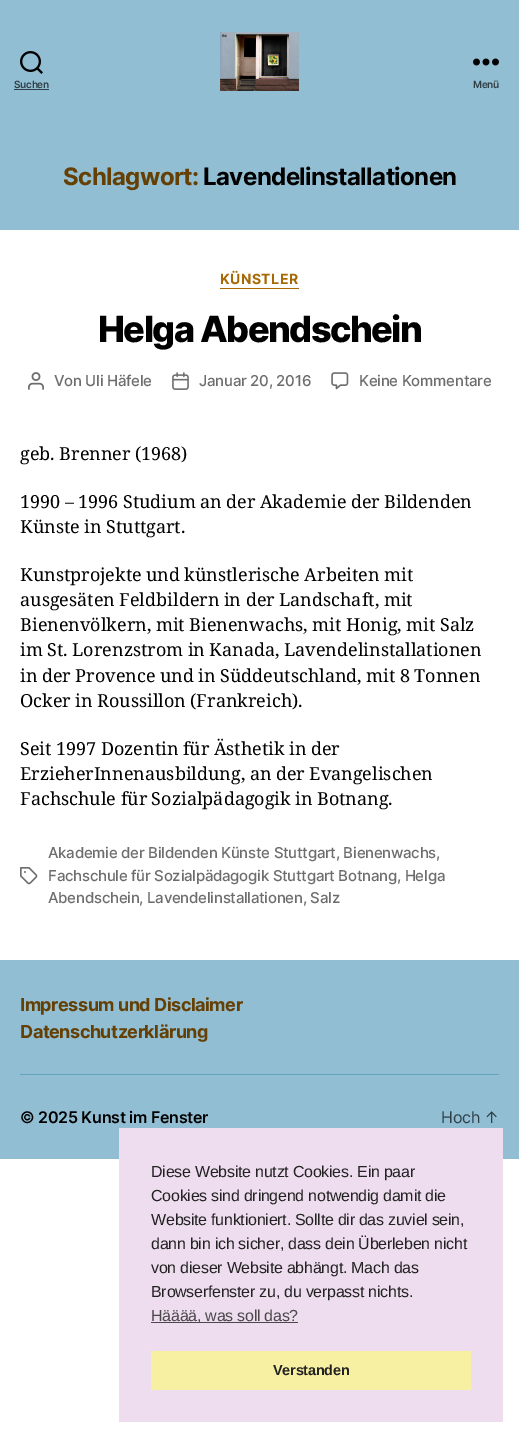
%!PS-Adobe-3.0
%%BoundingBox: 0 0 519 1438
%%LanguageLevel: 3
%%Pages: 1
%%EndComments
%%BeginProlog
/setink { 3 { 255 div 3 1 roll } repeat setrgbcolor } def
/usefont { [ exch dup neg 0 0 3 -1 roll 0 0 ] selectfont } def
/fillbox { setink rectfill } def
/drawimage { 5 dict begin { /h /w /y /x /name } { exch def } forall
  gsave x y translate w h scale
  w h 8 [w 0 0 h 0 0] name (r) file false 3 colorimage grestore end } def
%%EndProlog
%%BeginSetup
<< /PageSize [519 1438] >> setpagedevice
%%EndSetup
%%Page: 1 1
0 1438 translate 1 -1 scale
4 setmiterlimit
0 0 519 1438 255 255 255 fillbox
0 0 519 230 145 190 210 fillbox
(assets/img1.rgb) 20 51 23 23 drawimage
/Inter-SemiBold 10 usefont
46 63 70 setink
14 88 moveto -0.25 0 (Suchen) ashow
14 89 35 1 46 63 70 fillbox
(assets/img2.rgb) 220 32 79 59 drawimage
(assets/img3.rgb) 473 58 26 8 drawimage
473 88 moveto -0.25 0 (Menü) ashow
/Inter-Bold 24 usefont
101 64 5 setink
63 185 moveto -0.6 0 (Schlagwort:) ashow
0 0 0 setink
203 185 moveto -0.6 0 (Lavendelinstallationen) ashow
220 288 79 1 167 105 6 fillbox
/Inter-Bold 14 usefont
220 284 moveto 0.5 0 (KÜNSTLER) ashow
/Inter-ExtraBold 36 usefont
0 0 0 setink
98 342 moveto -1.5 0 (Helga Abendschein) ashow
(assets/img4.rgb) 28 372 16 18 drawimage
/Inter-Medium 15 usefont
109 109 109 setink
54 386 moveto -0.25 0 (Von Uli Häfele) ashow
(assets/img5.rgb) 172 372 17 18 drawimage
199 386 moveto -0.25 0 (Januar 20, 2016) ashow
(assets/img6.rgb) 331 372 18 18 drawimage
359 386 moveto -0.25 0 (Keine Kommentare) ashow
/NotoSerif-Regular 18 usefont
0 0 0 setink
20 460 moveto -0.25 0 32 (geb. Brenner \(1968\)) widthshow
20 508 moveto -0.25 0 32 (1990 – 1996 Studium an der Akademie der Bildenden) widthshow
20 533 moveto -0.25 0 32 (Künste in Stuttgart.) widthshow
20 581 moveto -0.25 0 32 (Kunstprojekte und künstlerische Arbeiten mit) widthshow
20 606 moveto -0.25 0 32 (ausgesäten Feldbildern in der Landschaft, mit) widthshow
20 631 moveto -0.25 0 32 (Bienenvölkern, mit Bienenwachs, mit Honig, mit Salz) widthshow
20 656 moveto -0.25 0 32 (im St. Lorenzstrom in Kanada, Lavendelinstallationen) widthshow
20 682 moveto -0.25 0 32 (in der Provence und in Süddeutschland, mit 8 Tonnen) widthshow
20 707 moveto -0.25 0 32 (Ocker in Roussillon \(Frankreich\).) widthshow
20 755 moveto -0.25 0 32 (Seit 1997 Dozentin für Ästhetik in der) widthshow
20 780 moveto -0.25 0 32 (ErzieherInnenausbildung, an der Evangelischen) widthshow
20 805 moveto -0.25 0 32 (Fachschule für Sozialpädagogik in Botnang.) widthshow
(assets/img7.rgb) 20 867 18 18 drawimage
/Inter-Medium 15 usefont
109 109 109 setink
48 858 moveto -0.25 0 (Akademie der Bildenden Künste Stuttgart, Bienenwachs,) ashow
48 881 moveto -0.25 0 (Fachschule für Sozialpädagogik Stuttgart Botnang, Helga) ashow
48 903 moveto -0.25 0 (Abendschein, Lavendelinstallationen, Salz) ashow
0 960 519 199 145 190 210 fillbox
20 1074 479 1 101 162 189 fillbox
/Inter-Bold 18 usefont
101 64 5 setink
20 1011 moveto -0.5 0 (Impressum und Disclaimer) ashow
20 1038 moveto -0.5 0 (Datenschutzerklärung) ashow
/Inter-SemiBold 16 usefont
0 0 0 setink
20 1123 moveto -0.25 0 (© 2025 Kunst im Fenster) ashow
/Inter-Regular 16 usefont
46 63 70 setink
441 1123 moveto -0.25 0 (Hoch ↑) ashow
119 1128 384 294 238 221 238 fillbox
/LiberationSans-Regular 16 usefont
34 34 34 setink
151 1177 moveto -0.25 0 (Diese Website nutzt Cookies. Ein paar) ashow
151 1201 moveto -0.25 0 (Cookies sind dringend notwendig damit die) ashow
151 1225 moveto -0.25 0 (Website funktioniert. Sollte dir das zuviel sein,) ashow
151 1249 moveto -0.25 0 (dann bin ich sicher, dass dein Überleben nicht) ashow
151 1273 moveto -0.25 0 (von dieser Website abhängt. Mach das) ashow
151 1297 moveto -0.25 0 (Browserfenster zu, du verpasst nichts.) ashow
151 1322 147 1 75 71 75 fillbox
151 1321 moveto -0.25 0 (Hääää, was soll das?) ashow
151 1351 320 39 247 240 163 fillbox
/LiberationSans-Bold 14.5 usefont
34 34 34 setink
273 1375 moveto -0.25 0 (Verstanden) ashow
showpage
%%EOF
